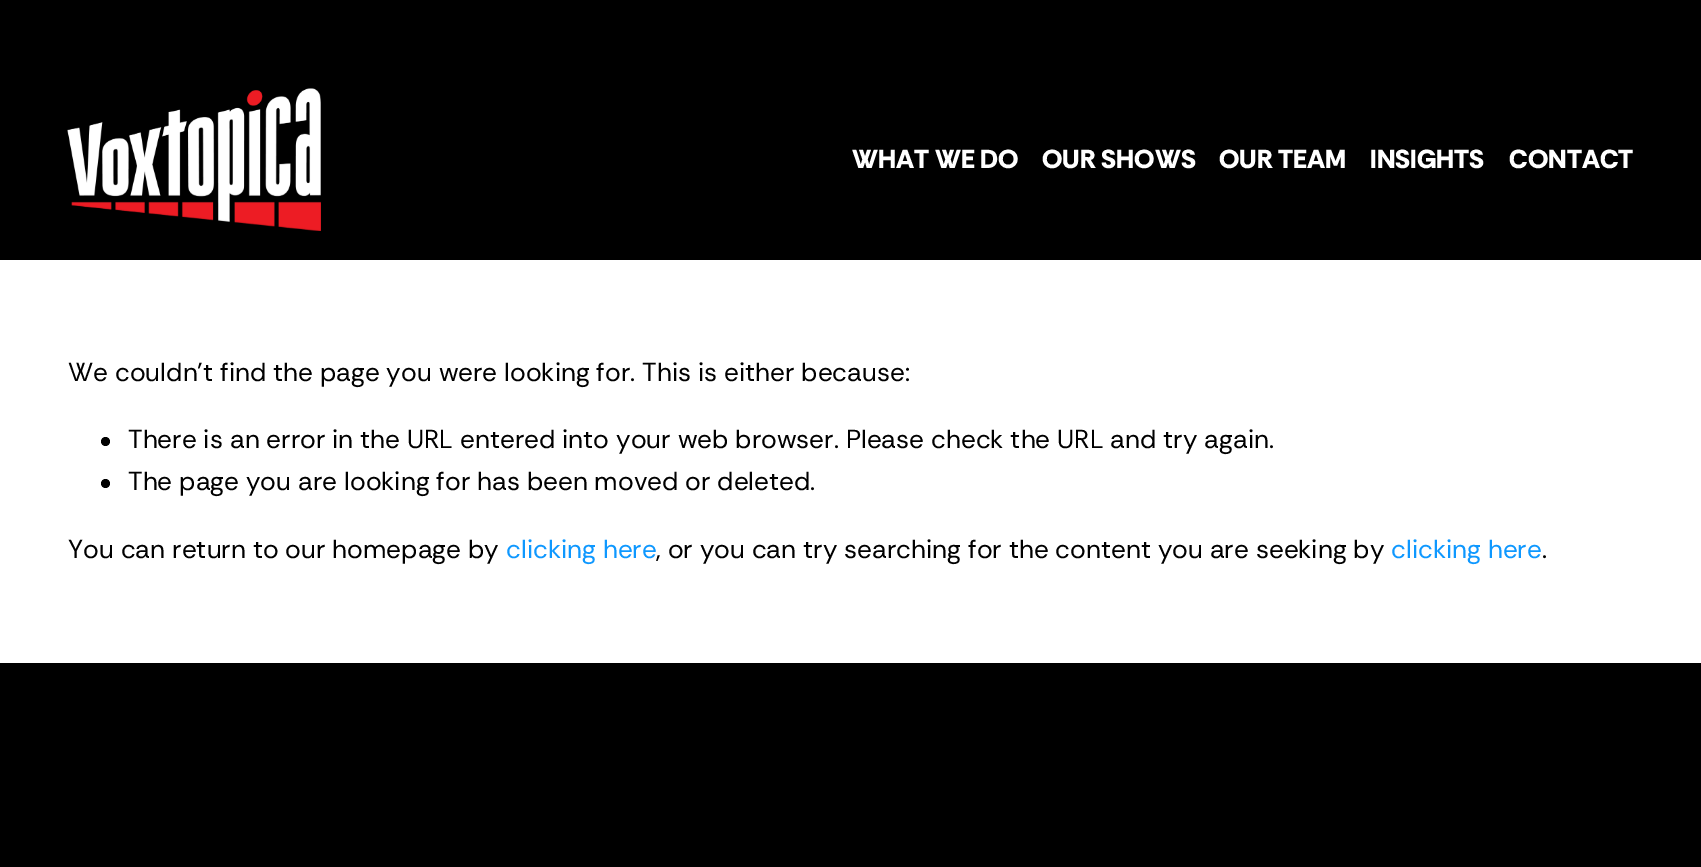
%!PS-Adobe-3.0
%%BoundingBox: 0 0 1701 867
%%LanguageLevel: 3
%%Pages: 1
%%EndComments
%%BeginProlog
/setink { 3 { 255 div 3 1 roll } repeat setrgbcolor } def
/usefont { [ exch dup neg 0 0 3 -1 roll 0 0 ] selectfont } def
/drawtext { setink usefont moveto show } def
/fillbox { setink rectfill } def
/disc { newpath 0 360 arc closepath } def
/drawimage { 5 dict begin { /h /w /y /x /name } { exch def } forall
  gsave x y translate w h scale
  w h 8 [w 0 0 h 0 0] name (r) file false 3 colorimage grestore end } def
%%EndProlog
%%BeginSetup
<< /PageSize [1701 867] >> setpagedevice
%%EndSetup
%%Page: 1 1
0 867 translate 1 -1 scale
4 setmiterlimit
0 0 1701 867 255 255 255 fillbox
0 0 1701 260 0 0 0 fillbox
(assets/img1.rgb) 67 88 254 143 drawimage
(WHAT WE DO) 852 168 /RethinkSans-ExtraBold 26.05 255 255 255 drawtext
(OUR SHOWS) 1042 168 /RethinkSans-ExtraBold 26.05 255 255 255 drawtext
(OUR TEAM) 1219 168 /RethinkSans-ExtraBold 26.05 255 255 255 drawtext
(INSIGHTS) 1370 168 /RethinkSans-ExtraBold 26.05 255 255 255 drawtext
(CONTACT) 1509 168 /RethinkSans-ExtraBold 26.05 255 255 255 drawtext
(We couldn't find the page you were looking for. This is either because:) 68 381 /RethinkSans-Regular 26.05 0 0 0 drawtext
105.5 441.5 4.5 disc fill
(There is an error in the URL entered into your web browser. Please check the URL and try again.) 128 448 /RethinkSans-Regular 26.05 0 0 0 drawtext
105.5 483.5 4.5 disc fill
(The page you are looking for has been moved or deleted.) 128 490 /RethinkSans-Regular 26.05 0 0 0 drawtext
(You can return to our homepage by) 68 558 /RethinkSans-Regular 26.05 0 0 0 drawtext
(clicking here) 506 558 /RethinkSans-Regular 26.05 14 152 255 drawtext
(, or you can try searching for the content you are seeking by) 656 558 /RethinkSans-Regular 26.05 0 0 0 drawtext
(clicking here) 1391 558 /RethinkSans-Regular 26.05 14 152 255 drawtext
(.) 1542 558 /RethinkSans-Regular 26.05 0 0 0 drawtext
0 663 1701 204 0 0 0 fillbox
showpage
%%EOF
